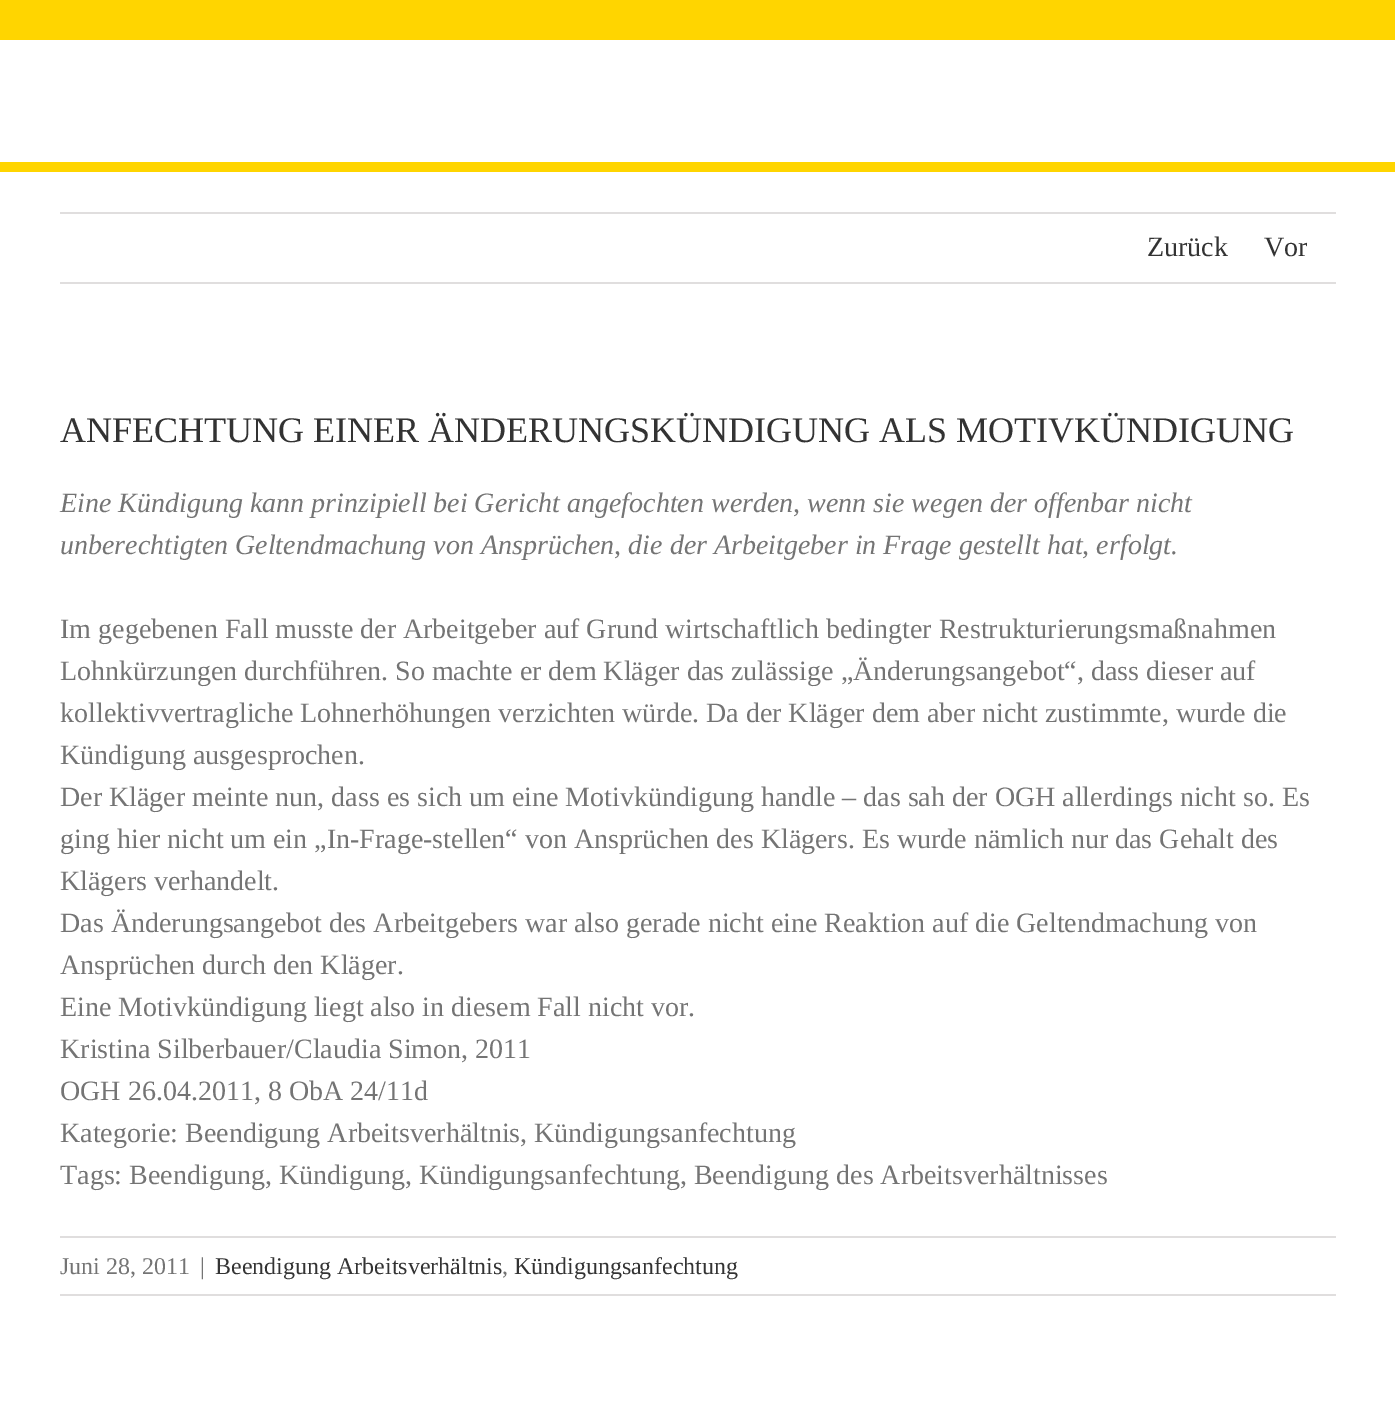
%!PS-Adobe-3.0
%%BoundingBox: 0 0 1395 1415
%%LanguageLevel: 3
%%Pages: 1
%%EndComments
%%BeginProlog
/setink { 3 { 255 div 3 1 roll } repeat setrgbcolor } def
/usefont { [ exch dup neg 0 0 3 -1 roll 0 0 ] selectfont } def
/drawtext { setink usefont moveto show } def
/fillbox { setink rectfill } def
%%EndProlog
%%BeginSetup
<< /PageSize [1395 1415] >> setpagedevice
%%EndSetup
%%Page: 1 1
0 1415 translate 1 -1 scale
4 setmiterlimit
0 0 1395 1415 255 255 255 fillbox
0 0 1395 40 255 213 0 fillbox
0 162 1395 10 255 213 0 fillbox
60 212 1276 2 224 222 222 fillbox
60 282 1276 2 224 222 222 fillbox
(Zurück) 1147 256 /LiberationSerif-Regular 28 51 51 51 drawtext
(Vor) 1264 256 /LiberationSerif-Regular 28 51 51 51 drawtext
(ANFECHTUNG EINER ÄNDERUNGSKÜNDIGUNG ALS MOTIVKÜNDIGUNG) 60 442 /LiberationSerif-Regular 36 51 51 51 drawtext
(Eine Kündigung kann prinzipiell bei Gericht angefochten werden, wenn sie wegen der offenbar nicht) 60 512 /LiberationSerif-Italic 28 116 116 116 drawtext
(unberechtigten Geltendmachung von Ansprüchen, die der Arbeitgeber in Frage gestellt hat, erfolgt.) 60 554 /LiberationSerif-Italic 28 116 116 116 drawtext
(Im gegebenen Fall musste der Arbeitgeber auf Grund wirtschaftlich bedingter Restrukturierungsmaßnahmen) 60 638 /LiberationSerif-Regular 28 116 116 116 drawtext
(Lohnkürzungen durchführen. So machte er dem Kläger das zulässige „Änderungsangebot“, dass dieser auf) 60 680 /LiberationSerif-Regular 28 116 116 116 drawtext
(kollektivvertragliche Lohnerhöhungen verzichten würde. Da der Kläger dem aber nicht zustimmte, wurde die) 60 722 /LiberationSerif-Regular 28 116 116 116 drawtext
(Kündigung ausgesprochen.) 60 764 /LiberationSerif-Regular 28 116 116 116 drawtext
(Der Kläger meinte nun, dass es sich um eine Motivkündigung handle – das sah der OGH allerdings nicht so. Es) 60 806 /LiberationSerif-Regular 28 116 116 116 drawtext
(ging hier nicht um ein „In-Frage-stellen“ von Ansprüchen des Klägers. Es wurde nämlich nur das Gehalt des) 60 848 /LiberationSerif-Regular 28 116 116 116 drawtext
(Klägers verhandelt.) 60 890 /LiberationSerif-Regular 28 116 116 116 drawtext
(Das Änderungsangebot des Arbeitgebers war also gerade nicht eine Reaktion auf die Geltendmachung von) 60 932 /LiberationSerif-Regular 28 116 116 116 drawtext
(Ansprüchen durch den Kläger.) 60 974 /LiberationSerif-Regular 28 116 116 116 drawtext
(Eine Motivkündigung liegt also in diesem Fall nicht vor.) 60 1016 /LiberationSerif-Regular 28 116 116 116 drawtext
(Kristina Silberbauer/Claudia Simon, 2011) 60 1058 /LiberationSerif-Regular 28 116 116 116 drawtext
(OGH 26.04.2011, 8 ObA 24/11d) 60 1100 /LiberationSerif-Regular 28 116 116 116 drawtext
(Kategorie: Beendigung Arbeitsverhältnis, Kündigungsanfechtung) 60 1142 /LiberationSerif-Regular 28 116 116 116 drawtext
(Tags: Beendigung, Kündigung, Kündigungsanfechtung, Beendigung des Arbeitsverhältnisses) 60 1184 /LiberationSerif-Regular 28 116 116 116 drawtext
60 1236 1276 2 224 222 222 fillbox
60 1294 1276 2 224 222 222 fillbox
(Juni 28, 2011) 60 1274 /LiberationSerif-Regular 24 116 116 116 drawtext
(|) 200 1274 /LiberationSerif-Regular 24 116 116 116 drawtext
(Beendigung Arbeitsverhältnis) 215 1274 /LiberationSerif-Regular 24 51 51 51 drawtext
(,) 502 1274 /LiberationSerif-Regular 24 116 116 116 drawtext
(Kündigungsanfechtung) 514 1274 /LiberationSerif-Regular 24 51 51 51 drawtext
showpage
%%EOF
